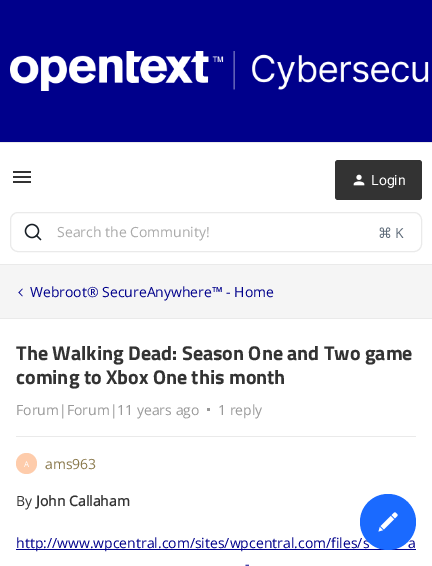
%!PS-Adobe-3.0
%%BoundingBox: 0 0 432 566
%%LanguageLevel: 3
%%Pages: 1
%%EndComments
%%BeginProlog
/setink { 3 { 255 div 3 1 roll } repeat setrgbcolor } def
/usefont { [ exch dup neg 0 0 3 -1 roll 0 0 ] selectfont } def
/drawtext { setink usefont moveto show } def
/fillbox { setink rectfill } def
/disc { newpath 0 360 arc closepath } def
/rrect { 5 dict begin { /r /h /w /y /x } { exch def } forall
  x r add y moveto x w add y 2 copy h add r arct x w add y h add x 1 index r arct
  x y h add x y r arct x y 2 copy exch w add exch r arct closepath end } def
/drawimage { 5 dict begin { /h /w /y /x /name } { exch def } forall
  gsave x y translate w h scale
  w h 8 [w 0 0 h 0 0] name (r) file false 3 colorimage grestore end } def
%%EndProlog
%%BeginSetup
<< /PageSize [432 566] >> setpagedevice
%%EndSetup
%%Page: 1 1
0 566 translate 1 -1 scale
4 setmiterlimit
0 0 432 566 245 245 245 fillbox
0 0 432 142 0 0 139 fillbox
(assets/img1.rgb) 10 51 419 40 drawimage
0 143 432 121 255 255 255 fillbox
0 142 432 1 234 234 234 fillbox
0 264 432 1 234 234 234 fillbox
(assets/img2.rgb) 13 171 18 12 drawimage
51 51 51 setink
335 160 87 40 3 rrect fill
(assets/img3.rgb) 353 174 12 12 drawimage
(Login) 371 185 /Roboto-Regular 14 255 255 255 drawtext
234 234 234 setink
10.5 212.5 411 39 7.5 rrect stroke
24 31 38 setink
1.3 setlinewidth
32 231 6.5 disc stroke
1 setlinecap
36.5 235.5 moveto 40.5 239.5 lineto stroke
(Search the Community!) 57 237 /OpenSans-Regular 14 170 170 170 drawtext
(⌘) 378 238 /DejaVuSans-Regular 14 95 108 122 drawtext
(K) 395 238 /OpenSans-Regular 14 95 108 122 drawtext
(assets/img4.rgb) 18 288 5 9 drawimage
(Webroot® SecureAnywhere™ - Home) 30 297 /OpenSans-Regular 14 0 0 139 drawtext
0 319 432 247 255 255 255 fillbox
0 318 432 1 234 234 234 fillbox
(The Walking Dead: Season One and Two game) 16 360 /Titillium-Bold 20 51 51 51 drawtext
(coming to Xbox One this month) 16 384 /Titillium-Bold 20 51 51 51 drawtext
(Forum|Forum|11 years ago) 16 415 /OpenSans-Regular 14 153 153 153 drawtext
207 408 3 3 153 153 153 fillbox
(1 reply) 218 415 /OpenSans-Regular 14 153 153 153 drawtext
16 436 400 1 234 234 234 fillbox
254 204 171 setink
26.5 463.5 10.5 disc fill
(A) 24 467 /OpenSans-Regular 8 255 255 255 drawtext
(ams963) 45 469 /OpenSans-Regular 14 138 121 76 drawtext
(By) 16 506 /OpenSans-Regular 14 51 51 51 drawtext
(John Callaham) 36 506 /OpenSans-Bold 14 51 51 51 drawtext
16 549 400 1 0 0 139 fillbox
(http://www.wpcentral.com/sites/wpcentral.com/files/s) 16 548 /OpenSans-Regular 14 0 0 139 drawtext
(a) 408 548 /OpenSans-Regular 14 0 0 139 drawtext
(-) 245 569 /OpenSans-Regular 14 0 0 139 drawtext
26 106 255 setink
388 522 28 disc fill
(assets/img5.rgb) 378 512 20 20 drawimage
showpage
%%EOF
